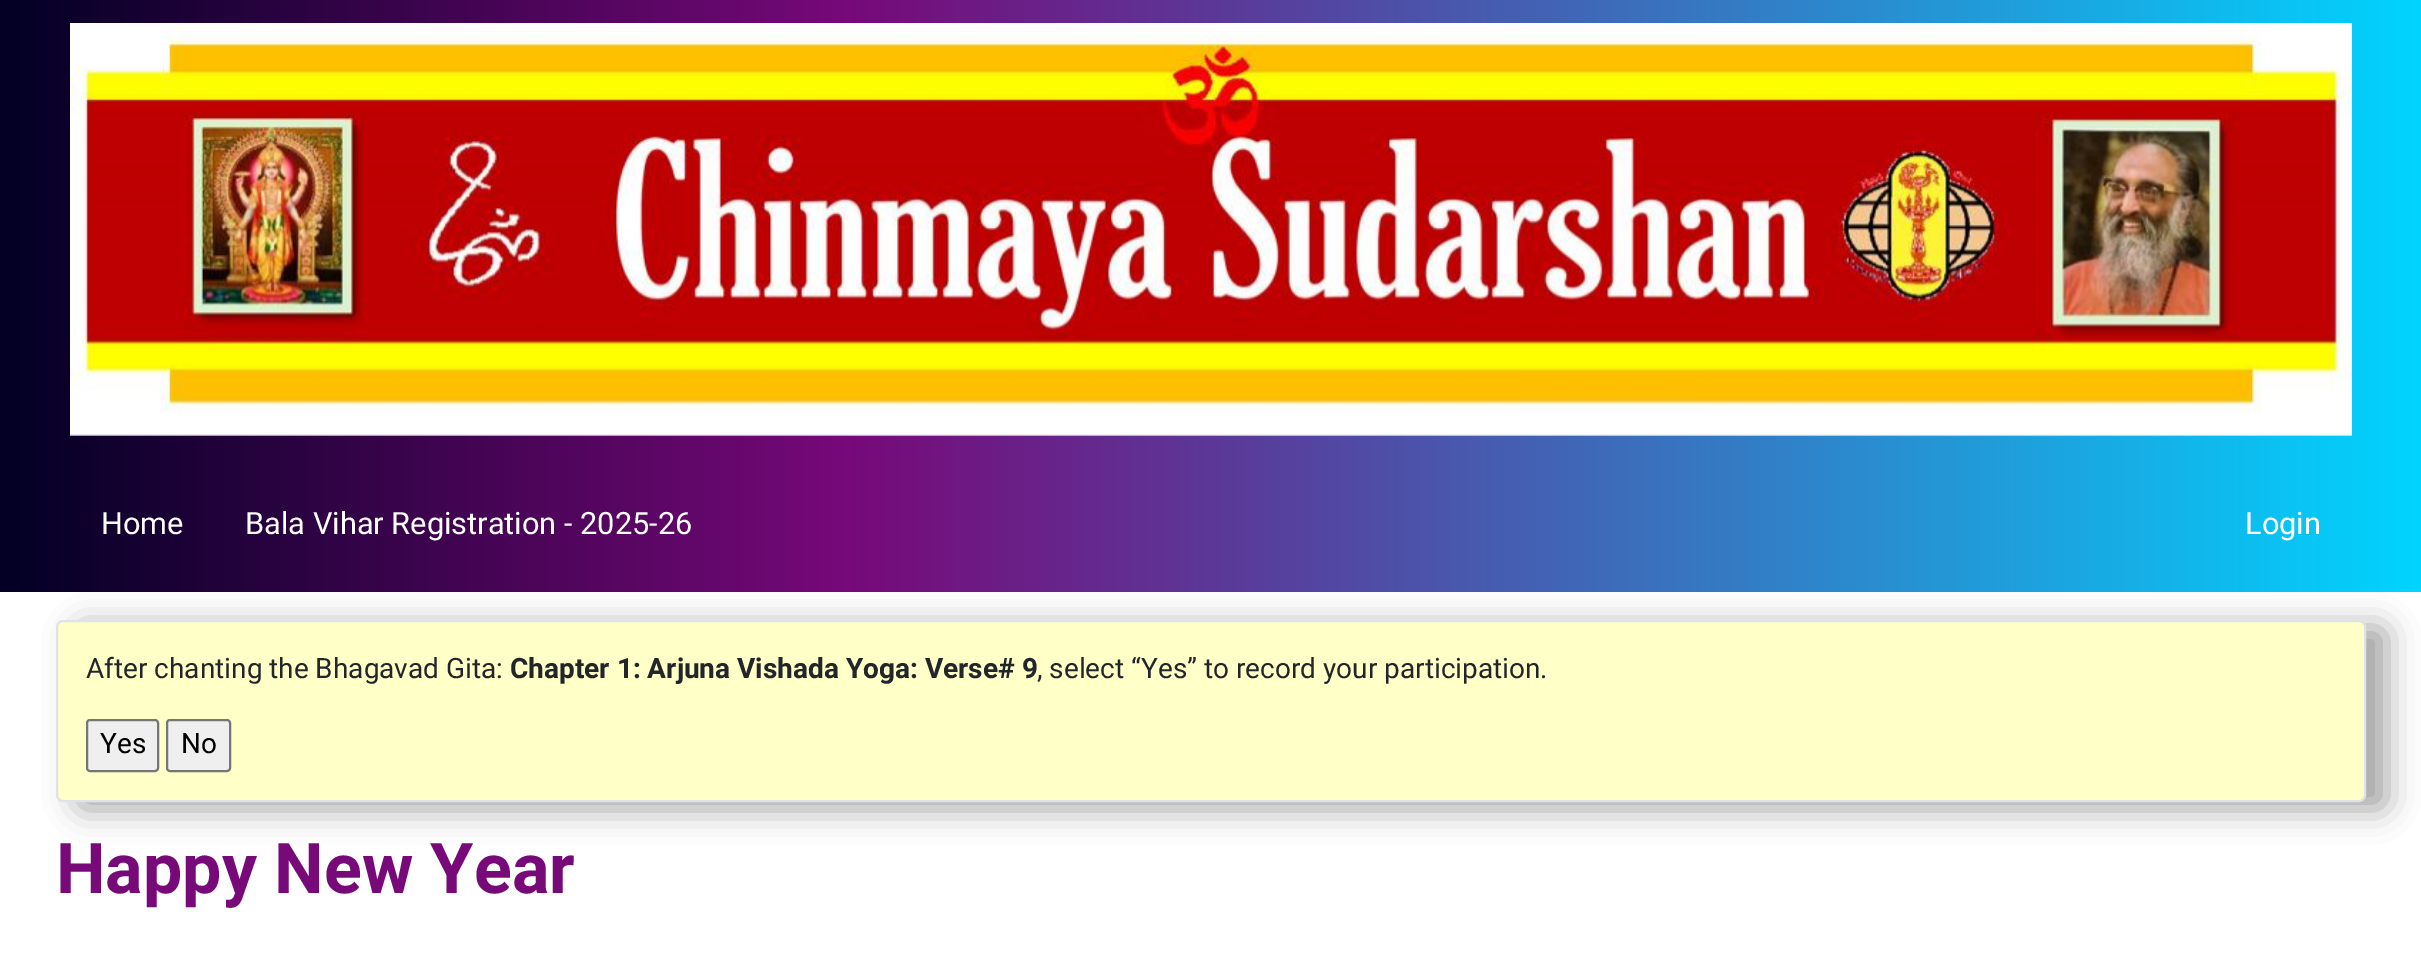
%!PS-Adobe-3.0
%%BoundingBox: 0 0 2421 958
%%LanguageLevel: 3
%%Pages: 1
%%EndComments
%%BeginProlog
/setink { 3 { 255 div 3 1 roll } repeat setrgbcolor } def
/usefont { [ exch dup neg 0 0 3 -1 roll 0 0 ] selectfont } def
/drawtext { setink usefont moveto show } def
/fillbox { setink rectfill } def
/setalpha { dup .setfillconstantalpha .setstrokeconstantalpha } def
/rrect { 5 dict begin { /r /h /w /y /x } { exch def } forall
  x r add y moveto x w add y 2 copy h add r arct x w add y h add x 1 index r arct
  x y h add x y r arct x y 2 copy exch w add exch r arct closepath end } def
/softshadow { 12 dict begin { /a /b /q /h /w /y /x } { exch def } forall gsave /was 0 def
  9 -2 -9 { dup b mul 4 div /e exch def 1 sub .425 mul 2.718 exch exp 1 add a .99 .min exch div /now exch def
    1 1 now sub 1 was sub div sub setalpha /was now def
    w h .min e 2 mul add 0 gt { x e sub y e sub w e 2 mul add h e 2 mul add
      q e add b .6 mul add w h .min 2 div e add .min 0 .max rrect fill } if } for grestore end } def
/drawimage { 5 dict begin { /h /w /y /x /name } { exch def } forall
  gsave x y translate w h scale
  w h 8 [w 0 0 h 0 0] name (r) file false 3 colorimage grestore end } def
%%EndProlog
%%BeginSetup
<< /PageSize [2421 958] /PageUsesTransparency true >> setpagedevice
%%EndSetup
%%Page: 1 1
0 .pushpdf14devicefilter
0 958 translate 1 -1 scale
4 setmiterlimit
0 0 2421 958 255 255 255 fillbox
0 0 0 setink
77 627 2310 182 7 16 0.35 softshadow
gsave 0 0 moveto 2421 0 lineto 2421 592 lineto 0 592 lineto closepath clip newpath
<< /ShadingType 2 /ColorSpace /DeviceRGB /Coords [0 296 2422 296] /Extend [true true] /Function << /FunctionType 3 /Domain [0 1] /Functions [<< /FunctionType 2 /Domain [0 1] /C0 [0.008 0 0.141] /C1 [0.467 0.035 0.475] /N 1 >> << /FunctionType 2 /Domain [0 1] /C0 [0.467 0.035 0.475] /C1 [0 0.831 1] /N 1 >>] /Bounds [0.35] /Encode [0 1 0 1] >> >> shfill grestore
(assets/img1.rgb) 70 23 2282 413 drawimage
(Home) 101 534 /Roboto-Regular 30.75 255 255 255 drawtext
(Bala Vihar Registration - 2025-26) 245 534 /Roboto-Regular 30.75 255 255 255 drawtext
(Login) 2245 534 /Roboto-Regular 30.75 255 255 255 drawtext
255 255 200 setink
57 621 2308 180 6 rrect gsave fill grestore
223 227 231 setink
2 setlinewidth
stroke
(After chanting the Bhagavad Gita:) 86 678 /Roboto-Regular 28 34 38 42 drawtext
(Chapter 1: Arjuna Vishada Yoga: Verse# 9) 510 678 /Roboto-Bold 28 34 38 42 drawtext
(, select “Yes” to record your participation.) 1037 678 /Roboto-Regular 28 34 38 42 drawtext
239 239 239 setink
87 720 71 51 3 rrect gsave fill grestore
118 118 118 setink
stroke
(Yes) 100 753 /Roboto-Regular 28 0 0 0 drawtext
239 239 239 setink
167 720 63 51 3 rrect gsave fill grestore
118 118 118 setink
stroke
(No) 181 753 /Roboto-Regular 28 0 0 0 drawtext
(Happy New Year) 56 893 /Roboto-Bold 70 119 9 121 drawtext
.poppdf14devicefilter showpage
%%EOF
